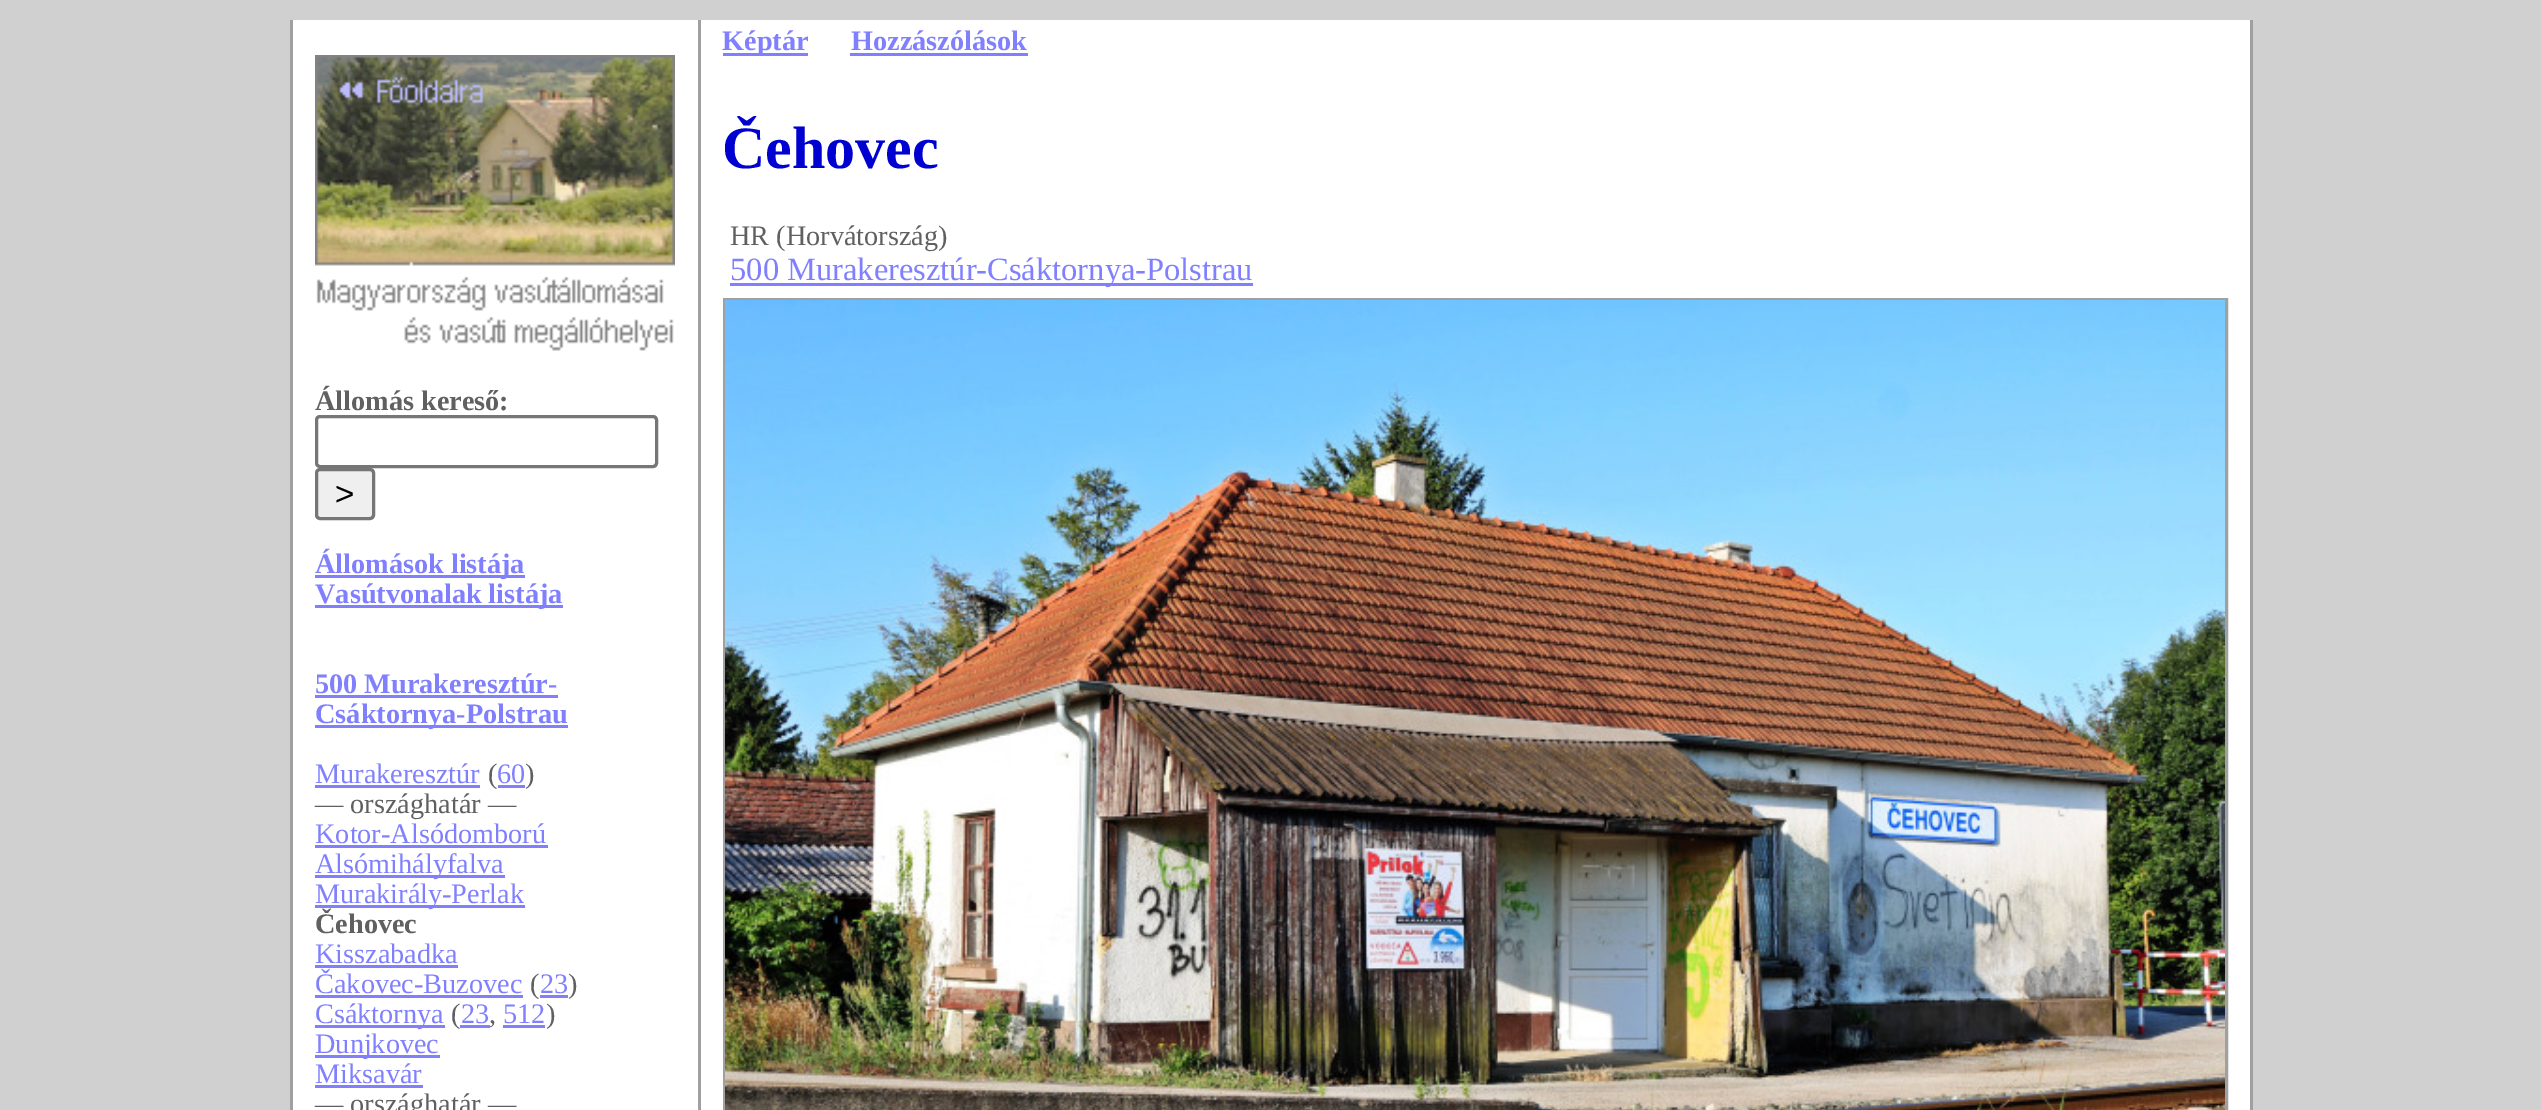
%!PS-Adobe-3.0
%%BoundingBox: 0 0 2541 1110
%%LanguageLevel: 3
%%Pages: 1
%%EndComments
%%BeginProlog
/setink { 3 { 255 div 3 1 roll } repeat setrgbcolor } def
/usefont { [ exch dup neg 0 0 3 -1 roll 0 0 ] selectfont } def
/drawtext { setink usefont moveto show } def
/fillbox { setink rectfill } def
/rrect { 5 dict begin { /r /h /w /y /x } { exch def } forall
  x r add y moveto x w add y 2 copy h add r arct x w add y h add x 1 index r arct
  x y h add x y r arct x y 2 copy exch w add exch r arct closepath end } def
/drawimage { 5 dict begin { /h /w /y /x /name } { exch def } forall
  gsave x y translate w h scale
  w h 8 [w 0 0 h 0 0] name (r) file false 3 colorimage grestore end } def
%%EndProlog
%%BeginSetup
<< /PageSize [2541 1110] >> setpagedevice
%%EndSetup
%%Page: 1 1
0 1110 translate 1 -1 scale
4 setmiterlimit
0 0 2541 1110 208 208 208 fillbox
293 20 405 1090 255 255 255 fillbox
290 20 3 1090 160 160 160 fillbox
701 20 1549 1090 255 255 255 fillbox
698 20 3 1090 160 160 160 fillbox
2250 20 3 1090 160 160 160 fillbox
723 53 85 3 128 128 255 fillbox
(Képtár) 722 50 /LiberationSerif-Bold 28.25 128 128 255 drawtext
(Hozzászólások) 851 50 /LiberationSerif-Bold 28.25 128 128 255 drawtext
850 53 178 3 128 128 255 fillbox
(Čehovec) 722 168 /LiberationSerif-Bold 60 0 0 208 drawtext
(HR \(Horvátország\)) 730 245 /LiberationSerif-Regular 28.25 96 96 96 drawtext
730 283 523 3 128 128 255 fillbox
(500 Murakeresztúr-Csáktornya-Polstrau) 730 280 /LiberationSerif-Regular 32.5 128 128 255 drawtext
160 160 160 setink
3 setlinewidth
724.5 299.5 1502 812 rectstroke
(assets/img1.rgb) 725 300 1500 810 drawimage
(assets/img2.rgb) 315 55 360 296 drawimage
(Állomás kereső:) 315 410 /LiberationSerif-Bold 28.25 96 96 96 drawtext
118 118 118 setink
316.5 416.5 340 50 3.5 rrect stroke
239 239 239 setink
316.5 469.5 57 49 3.5 rrect gsave fill grestore
118 118 118 setink
stroke
(>) 335 505 /LiberationSans-Regular 33 0 0 0 drawtext
315 575 210 3 128 128 255 fillbox
(Állomások listája) 315 573 /LiberationSerif-Bold 28.25 128 128 255 drawtext
315 605 248 3 128 128 255 fillbox
(Vasútvonalak listája) 315 603 /LiberationSerif-Bold 28.25 128 128 255 drawtext
(500 Murakeresztúr-) 315 693 /LiberationSerif-Bold 28.25 128 128 255 drawtext
315 695 243 3 128 128 255 fillbox
315 725 253 3 128 128 255 fillbox
(Csáktornya-Polstrau) 315 723 /LiberationSerif-Bold 28.25 128 128 255 drawtext
(Murakeresztúr) 315 783 /LiberationSerif-Regular 28.25 128 128 255 drawtext
315 785 165 3 128 128 255 fillbox
(\() 488 783 /LiberationSerif-Regular 28.25 96 96 96 drawtext
(60) 497 783 /LiberationSerif-Regular 28.25 128 128 255 drawtext
498 785 27 3 128 128 255 fillbox
(\)) 525 783 /LiberationSerif-Regular 28.25 96 96 96 drawtext
(— országhatár —) 315 813 /LiberationSerif-Regular 28.25 96 96 96 drawtext
(Kotor-Alsódomború) 315 843 /LiberationSerif-Regular 28.25 128 128 255 drawtext
315 845 233 3 128 128 255 fillbox
315 875 190 3 128 128 255 fillbox
(Alsómihályfalva) 315 873 /LiberationSerif-Regular 28.25 128 128 255 drawtext
315 905 210 3 128 128 255 fillbox
(Murakirály-Perlak) 315 903 /LiberationSerif-Regular 28.25 128 128 255 drawtext
(Čehovec) 315 933 /LiberationSerif-Bold 28.25 96 96 96 drawtext
(Kisszabadka) 315 963 /LiberationSerif-Regular 28.25 128 128 255 drawtext
315 965 143 3 128 128 255 fillbox
(Čakovec-Buzovec) 315 993 /LiberationSerif-Regular 28.25 128 128 255 drawtext
315 995 208 3 128 128 255 fillbox
(\() 530 993 /LiberationSerif-Regular 28.25 96 96 96 drawtext
(23) 540 993 /LiberationSerif-Regular 28.25 128 128 255 drawtext
540 995 28 3 128 128 255 fillbox
(\)) 568 993 /LiberationSerif-Regular 28.25 96 96 96 drawtext
315 1025 130 3 128 128 255 fillbox
(Csáktornya) 315 1023 /LiberationSerif-Regular 28.25 128 128 255 drawtext
(\() 451 1023 /LiberationSerif-Regular 28.25 96 96 96 drawtext
(23) 461 1023 /LiberationSerif-Regular 28.25 128 128 255 drawtext
460 1025 30 3 128 128 255 fillbox
(,) 489 1023 /LiberationSerif-Regular 28.25 96 96 96 drawtext
(512) 503 1023 /LiberationSerif-Regular 28.25 128 128 255 drawtext
503 1025 42 3 128 128 255 fillbox
(\)) 546 1023 /LiberationSerif-Regular 28.25 96 96 96 drawtext
315 1055 125 3 128 128 255 fillbox
(Dunjkovec) 315 1053 /LiberationSerif-Regular 28.25 128 128 255 drawtext
(Miksavár) 315 1083 /LiberationSerif-Regular 28.25 128 128 255 drawtext
315 1085 108 3 128 128 255 fillbox
(— országhatár —) 315 1113 /LiberationSerif-Regular 28.25 96 96 96 drawtext
showpage
%%EOF
